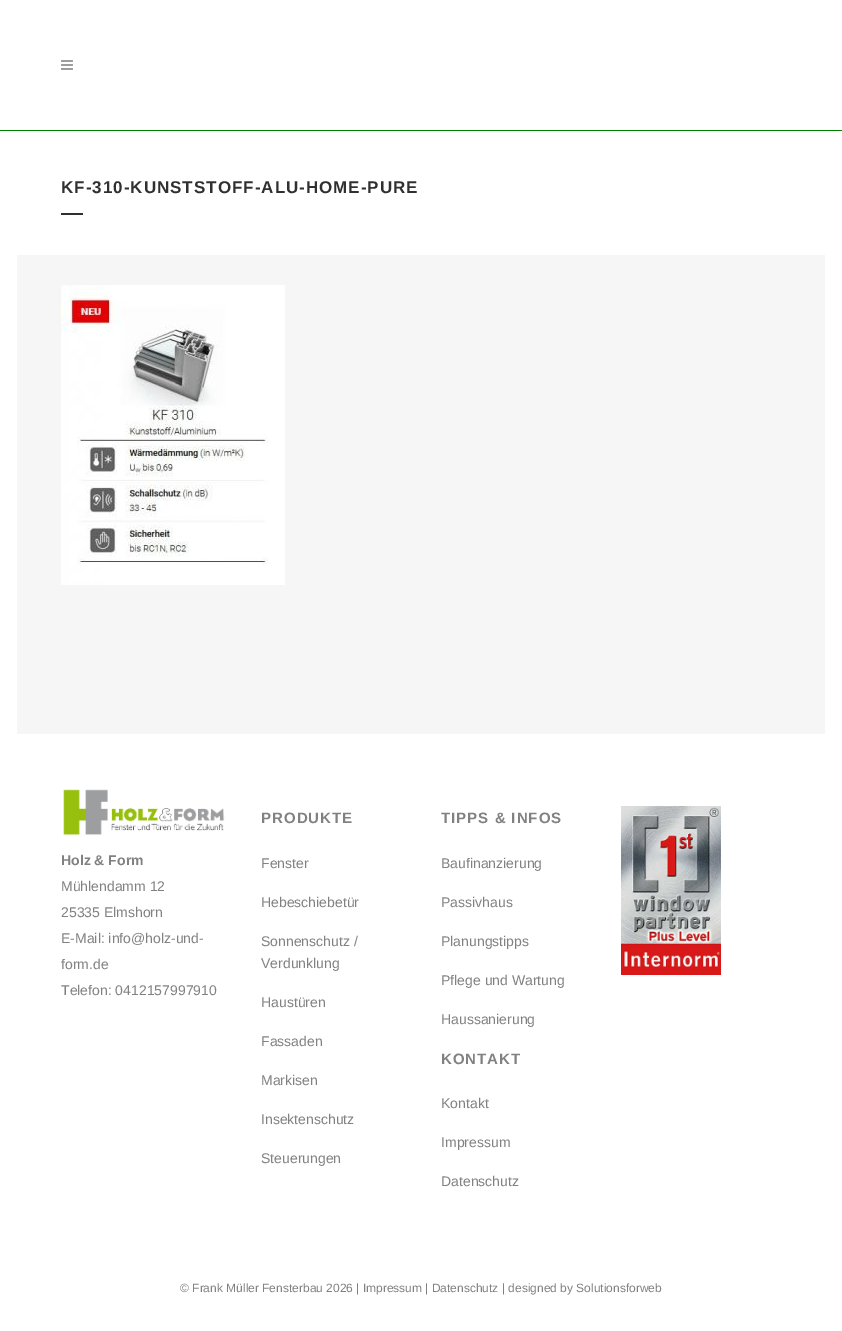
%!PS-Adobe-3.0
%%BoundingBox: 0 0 842 1331
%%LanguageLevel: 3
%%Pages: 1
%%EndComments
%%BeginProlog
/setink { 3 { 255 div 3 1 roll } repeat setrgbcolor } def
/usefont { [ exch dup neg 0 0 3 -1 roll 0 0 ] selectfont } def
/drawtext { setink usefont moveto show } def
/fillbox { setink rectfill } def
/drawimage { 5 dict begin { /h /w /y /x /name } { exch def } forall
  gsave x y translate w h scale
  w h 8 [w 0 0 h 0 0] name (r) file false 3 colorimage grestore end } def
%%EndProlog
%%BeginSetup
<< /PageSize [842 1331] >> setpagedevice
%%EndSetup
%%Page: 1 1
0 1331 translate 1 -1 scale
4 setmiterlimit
0 0 842 1331 246 246 246 fillbox
0 0 842 130 255 255 255 fillbox
0 130 842 1 0 130 0 fillbox
(assets/img1.rgb) 61 60 12 10 drawimage
0 131 17 1183 255 255 255 fillbox
17 131 808 124 255 255 255 fillbox
/LiberationSans-Bold 17 usefont
48 48 48 setink
61 193 moveto 1 0 (KF-310-KUNSTSTOFF-ALU-HOME-PURE) ashow
61 213 22 2 48 48 48 fillbox
(assets/img2.rgb) 61 285 224 300 drawimage
825 131 17 1183 255 255 255 fillbox
0 1314 842 17 255 255 255 fillbox
17 734 808 580 255 255 255 fillbox
(assets/img3.rgb) 63 789 162 47 drawimage
(Holz & Form) 61 865 /LiberationSans-Bold 14 129 129 129 drawtext
(Mühlendamm 12) 61 891 /LiberationSans-Regular 14 129 129 129 drawtext
(25335 Elmshorn) 61 917 /LiberationSans-Regular 14 129 129 129 drawtext
(E-Mail: info@holz-und-) 61 943 /LiberationSans-Regular 14 129 129 129 drawtext
(form.de) 61 969 /LiberationSans-Regular 14 129 129 129 drawtext
(Telefon: 0412157997910) 61 995 /LiberationSans-Regular 14 129 129 129 drawtext
/LiberationSans-Bold 15 usefont
261 823 moveto 1 0 (PRODUKTE) ashow
(Fenster) 261 868 /LiberationSans-Regular 14 129 129 129 drawtext
(Hebeschiebetür) 261 907 /LiberationSans-Regular 14 129 129 129 drawtext
(Sonnenschutz /) 261 946 /LiberationSans-Regular 14 129 129 129 drawtext
(Verdunklung) 261 968 /LiberationSans-Regular 14 129 129 129 drawtext
(Haustüren) 261 1007 /LiberationSans-Regular 14 129 129 129 drawtext
(Fassaden) 261 1046 /LiberationSans-Regular 14 129 129 129 drawtext
(Markisen) 261 1085 /LiberationSans-Regular 14 129 129 129 drawtext
(Insektenschutz) 261 1124 /LiberationSans-Regular 14 129 129 129 drawtext
(Steuerungen) 261 1163 /LiberationSans-Regular 14 129 129 129 drawtext
/LiberationSans-Bold 15 usefont
441 823 moveto 1 0 (TIPPS & INFOS) ashow
(Baufinanzierung) 441 868 /LiberationSans-Regular 14 129 129 129 drawtext
(Passivhaus) 441 907 /LiberationSans-Regular 14 129 129 129 drawtext
(Planungstipps) 441 946 /LiberationSans-Regular 14 129 129 129 drawtext
(Pflege und Wartung) 441 985 /LiberationSans-Regular 14 129 129 129 drawtext
(Haussanierung) 441 1024 /LiberationSans-Regular 14 129 129 129 drawtext
/LiberationSans-Bold 15 usefont
441 1064 moveto 1 0 (KONTAKT) ashow
(Kontakt) 441 1108 /LiberationSans-Regular 14 129 129 129 drawtext
(Impressum) 441 1147 /LiberationSans-Regular 14 129 129 129 drawtext
(Datenschutz) 441 1186 /LiberationSans-Regular 14 129 129 129 drawtext
(assets/img4.rgb) 621 806 100 169 drawimage
(© Frank Müller Fensterbau 2026 | Impressum | Datenschutz | designed by Solutionsforweb) 180 1292 /LiberationSans-Regular 12 129 129 129 drawtext
showpage
%%EOF
